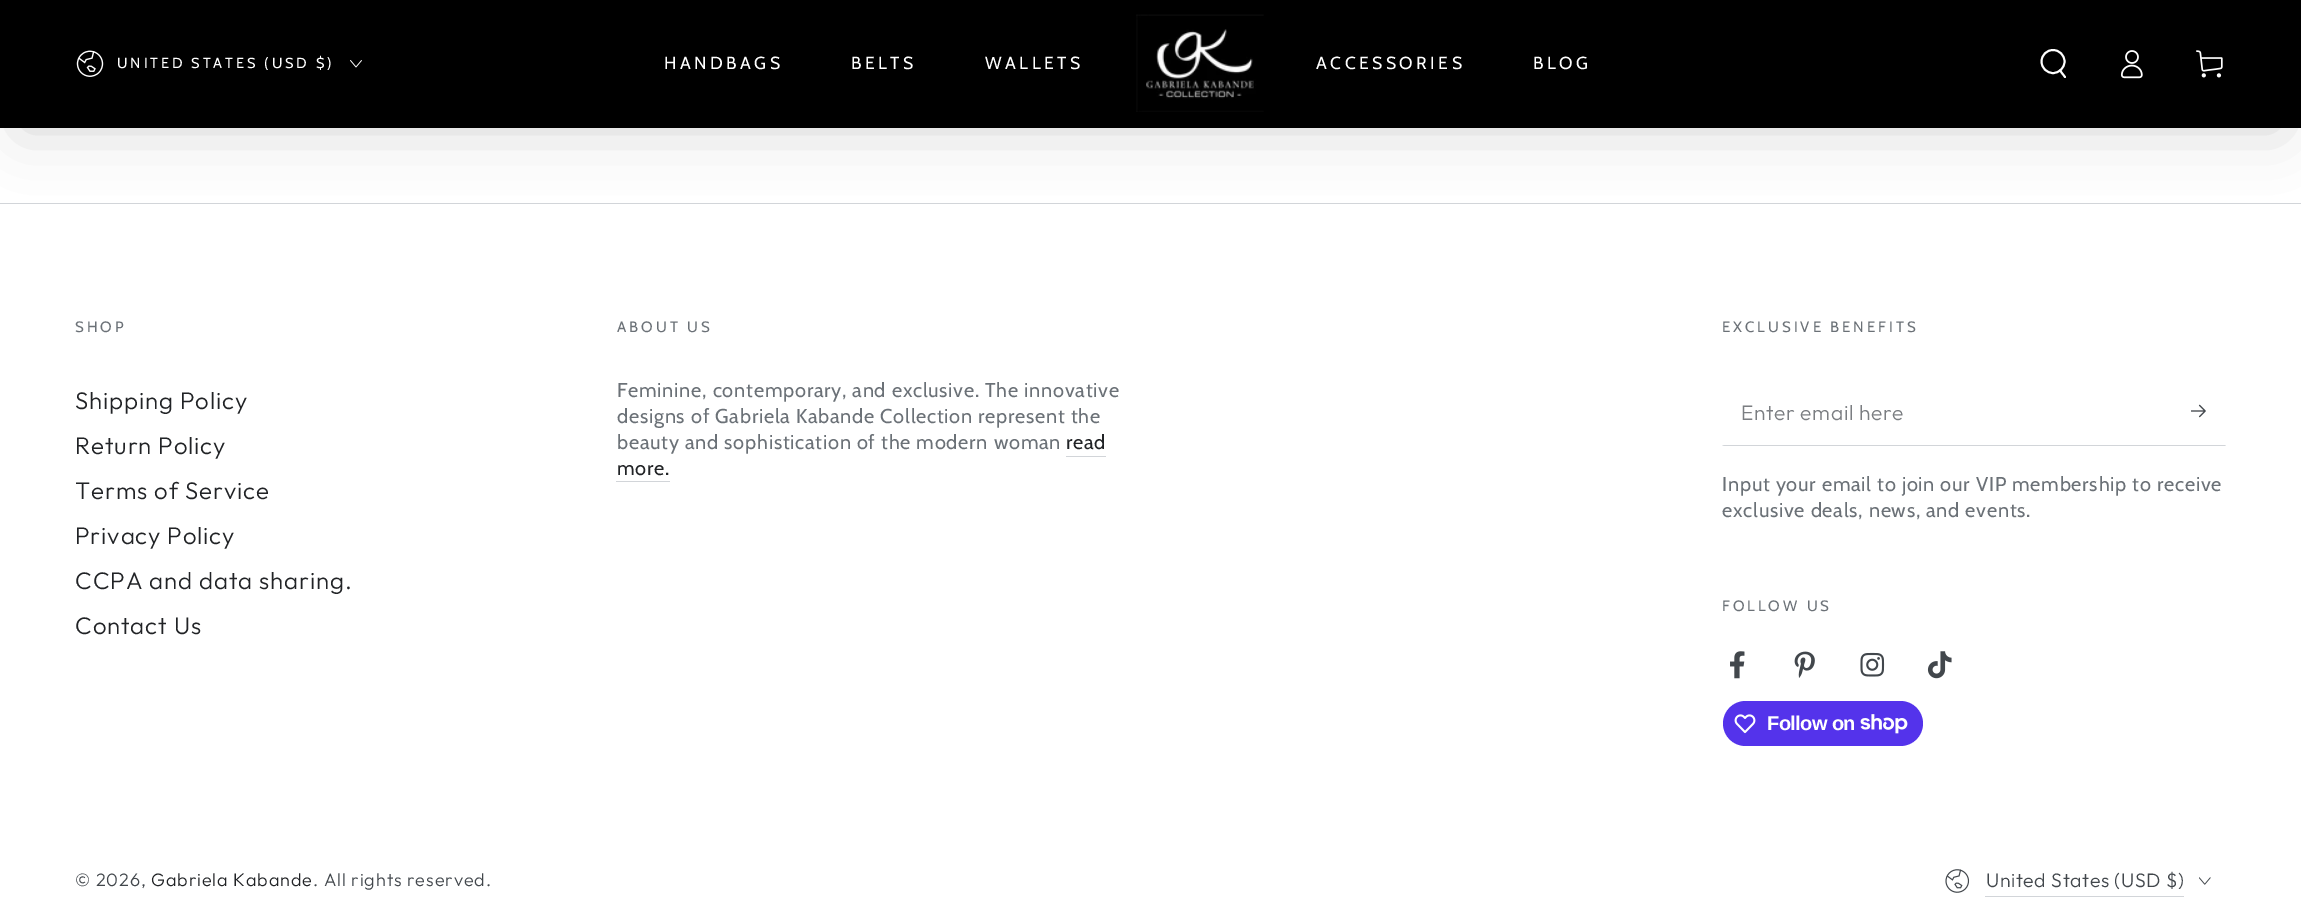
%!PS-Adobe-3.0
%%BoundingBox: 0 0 2301 897
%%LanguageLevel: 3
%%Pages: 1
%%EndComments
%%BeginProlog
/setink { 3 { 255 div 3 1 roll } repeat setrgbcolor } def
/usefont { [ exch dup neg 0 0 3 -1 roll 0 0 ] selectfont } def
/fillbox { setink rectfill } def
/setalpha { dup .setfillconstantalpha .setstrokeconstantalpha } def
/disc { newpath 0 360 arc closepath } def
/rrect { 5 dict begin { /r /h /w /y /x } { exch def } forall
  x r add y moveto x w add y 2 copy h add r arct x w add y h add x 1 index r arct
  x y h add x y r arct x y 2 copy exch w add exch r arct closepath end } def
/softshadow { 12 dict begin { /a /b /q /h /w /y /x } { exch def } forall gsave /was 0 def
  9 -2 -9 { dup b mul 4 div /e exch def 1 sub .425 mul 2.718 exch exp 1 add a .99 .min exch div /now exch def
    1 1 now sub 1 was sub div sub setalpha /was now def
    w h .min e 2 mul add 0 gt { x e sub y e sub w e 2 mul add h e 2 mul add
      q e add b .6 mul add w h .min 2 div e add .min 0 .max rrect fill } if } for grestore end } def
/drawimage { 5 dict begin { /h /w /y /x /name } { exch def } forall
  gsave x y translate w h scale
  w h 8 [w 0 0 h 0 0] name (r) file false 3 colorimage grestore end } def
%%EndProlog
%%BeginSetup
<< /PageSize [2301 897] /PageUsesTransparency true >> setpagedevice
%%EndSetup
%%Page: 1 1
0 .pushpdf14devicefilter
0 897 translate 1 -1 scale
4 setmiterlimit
0 0 2301 897 255 255 255 fillbox
0 203 2301 1 210 213 217 fillbox
33 35 38 setink
23 98 2256 30 15 30 0.2 softshadow
0 0 2301 128 0 0 0 fillbox
(assets/img1.rgb) 76 50 28 27 drawimage
/Cabin-Regular 14.5 usefont
255 255 255 setink
117 68 moveto 2.9 0 (UNITED STATES \(USD $\)) ashow
(assets/img2.rgb) 350 60 12 8 drawimage
/Cabin-Regular 17.5 usefont
664 69 moveto 3.5 0 (HANDBAGS) ashow
851 69 moveto 3.5 0 (BELTS) ashow
985 69 moveto 3.5 0 (WALLETS) ashow
(assets/img3.rgb) 1136 14 128 98 drawimage
1316 69 moveto 3.5 0 (ACCESSORIES) ashow
1533 69 moveto 3.5 0 (BLOG) ashow
1.9 setlinewidth
2053 61.5 11.5 disc stroke
1 setlinecap
2060 70.5 moveto 2065 77 lineto stroke
(assets/img4.rgb) 2120 50 23 29 drawimage
(assets/img5.rgb) 2196 50 27 28 drawimage
/Cabin-Regular 15 usefont
107 113 119 setink
75 332 moveto 3 0 (SHOP) ashow
/Outfit-Light 24 usefont
33 35 38 setink
75 409 moveto 0.9 0 (Shipping Policy) ashow
75 454 moveto 0.9 0 (Return Policy) ashow
75 499 moveto 0.9 0 (Terms of Service) ashow
75 544 moveto 0.9 0 (Privacy Policy) ashow
75 589 moveto 0.9 0 (CCPA and data sharing.) ashow
75 634 moveto 0.9 0 (Contact Us) ashow
/Cabin-Regular 15 usefont
107 113 119 setink
617 332 moveto 3 0 (ABOUT US) ashow
/Cabin-Regular 20 usefont
617 397 moveto 0.75 0 (Feminine, contemporary, and exclusive. The innovative) ashow
617 423 moveto 0.75 0 (designs of Gabriela Kabande Collection represent the) ashow
617 449 moveto 0.75 0 (beauty and sophistication of the modern woman) ashow
33 35 38 setink
1066 449 moveto 0.75 0 (read) ashow
1066 456 40 1 210 213 217 fillbox
33 35 38 setink
617 475 moveto 0.75 0 (more.) ashow
616 481 54 1 210 213 217 fillbox
/Cabin-Regular 15 usefont
107 113 119 setink
1722 332 moveto 3 0 (EXCLUSIVE BENEFITS) ashow
210 213 217 setink
2226 446 moveto 1722 446 lineto 1724 445 lineto 2225 445 lineto closepath fill
/Outfit-Light 21 usefont
123 126 130 setink
1741 420 moveto 0.6 0 (Enter email here) ashow
(assets/img6.rgb) 2191 404 15 14 drawimage
/Cabin-Regular 20 usefont
107 113 119 setink
1722 491 moveto 0.75 0 (Input your email to join our VIP membership to receive) ashow
1722 517 moveto 0.75 0 (exclusive deals, news, and events.) ashow
/Cabin-Regular 15 usefont
1722 611 moveto 3 0 (FOLLOW US) ashow
(assets/img7.rgb) 1730 651 15 28 drawimage
(assets/img8.rgb) 1794 651 21 27 drawimage
(assets/img9.rgb) 1860 652 25 25 drawimage
(assets/img10.rgb) 1927 651 25 28 drawimage
84 51 235 setink
1723 701 200 45 22.5 rrect fill
(assets/img11.rgb) 1734 714 22 20 drawimage
/LiberationSans-Bold 20 usefont
255 255 255 setink
1767 730 moveto -0.6 0 (Follow on) ashow
(assets/img12.rgb) 1860 714 48 20 drawimage
/Outfit-Light 18 usefont
66 71 76 setink
75 886 moveto 0.9 0 (© 2026,) ashow
33 35 38 setink
151 886 moveto 0.9 0 (Gabriela Kabande) ashow
66 71 76 setink
313 886 moveto 0.9 0 (. All rights reserved.) ashow
(assets/img13.rgb) 1945 869 25 24 drawimage
1985 896 199 1 210 213 217 fillbox
/Outfit-Light 19.5 usefont
66 71 76 setink
1986 887 moveto 0.6 0 (United States \(USD $\)) ashow
(assets/img14.rgb) 2199 877 12 8 drawimage
.poppdf14devicefilter showpage
%%EOF
